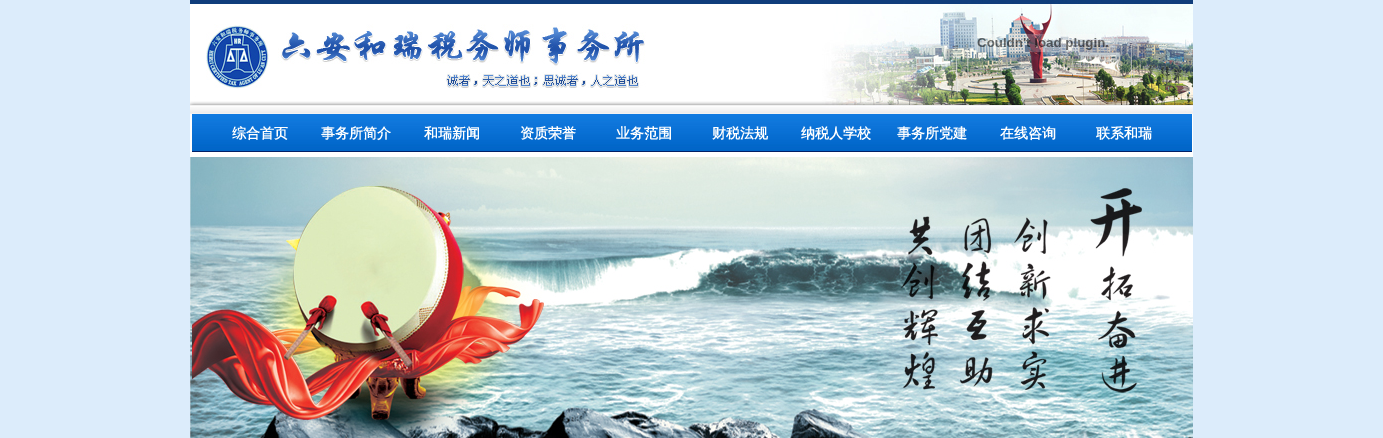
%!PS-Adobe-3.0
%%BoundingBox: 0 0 1383 438
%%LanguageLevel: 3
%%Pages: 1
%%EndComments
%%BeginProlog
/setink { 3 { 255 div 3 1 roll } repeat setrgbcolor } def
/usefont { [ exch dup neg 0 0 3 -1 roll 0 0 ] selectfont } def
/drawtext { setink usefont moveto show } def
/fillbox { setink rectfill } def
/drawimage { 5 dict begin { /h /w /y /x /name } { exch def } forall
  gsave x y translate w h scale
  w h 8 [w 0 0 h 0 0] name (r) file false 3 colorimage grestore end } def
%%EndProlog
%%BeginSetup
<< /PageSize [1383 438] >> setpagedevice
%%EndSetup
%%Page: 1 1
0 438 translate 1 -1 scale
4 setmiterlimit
0 0 1383 438 220 236 251 fillbox
190 114 1003 43 255 255 255 fillbox
(assets/img1.rgb) 190 0 1003 114 drawimage
(assets/img2.rgb) 971 34 144 18 drawimage
(assets/img3.rgb) 192 114 1000 38 drawimage
(综合首页) 232 138 /WenQuanYiZenHei-Bold 14 255 255 255 drawtext
(事务所简介) 321 138 /WenQuanYiZenHei-Bold 14 255 255 255 drawtext
(和瑞新闻) 424 138 /WenQuanYiZenHei-Bold 14 255 255 255 drawtext
(资质荣誉) 520 138 /WenQuanYiZenHei-Bold 14 255 255 255 drawtext
(业务范围) 616 138 /WenQuanYiZenHei-Bold 14 255 255 255 drawtext
(财税法规) 712 138 /WenQuanYiZenHei-Bold 14 255 255 255 drawtext
(纳税人学校) 801 138 /WenQuanYiZenHei-Bold 14 255 255 255 drawtext
(事务所党建) 897 138 /WenQuanYiZenHei-Bold 14 255 255 255 drawtext
(在线咨询) 1000 138 /WenQuanYiZenHei-Bold 14 255 255 255 drawtext
(联系和瑞) 1096 138 /WenQuanYiZenHei-Bold 14 255 255 255 drawtext
(assets/img4.rgb) 190 157 1003 281 drawimage
showpage
%%EOF
